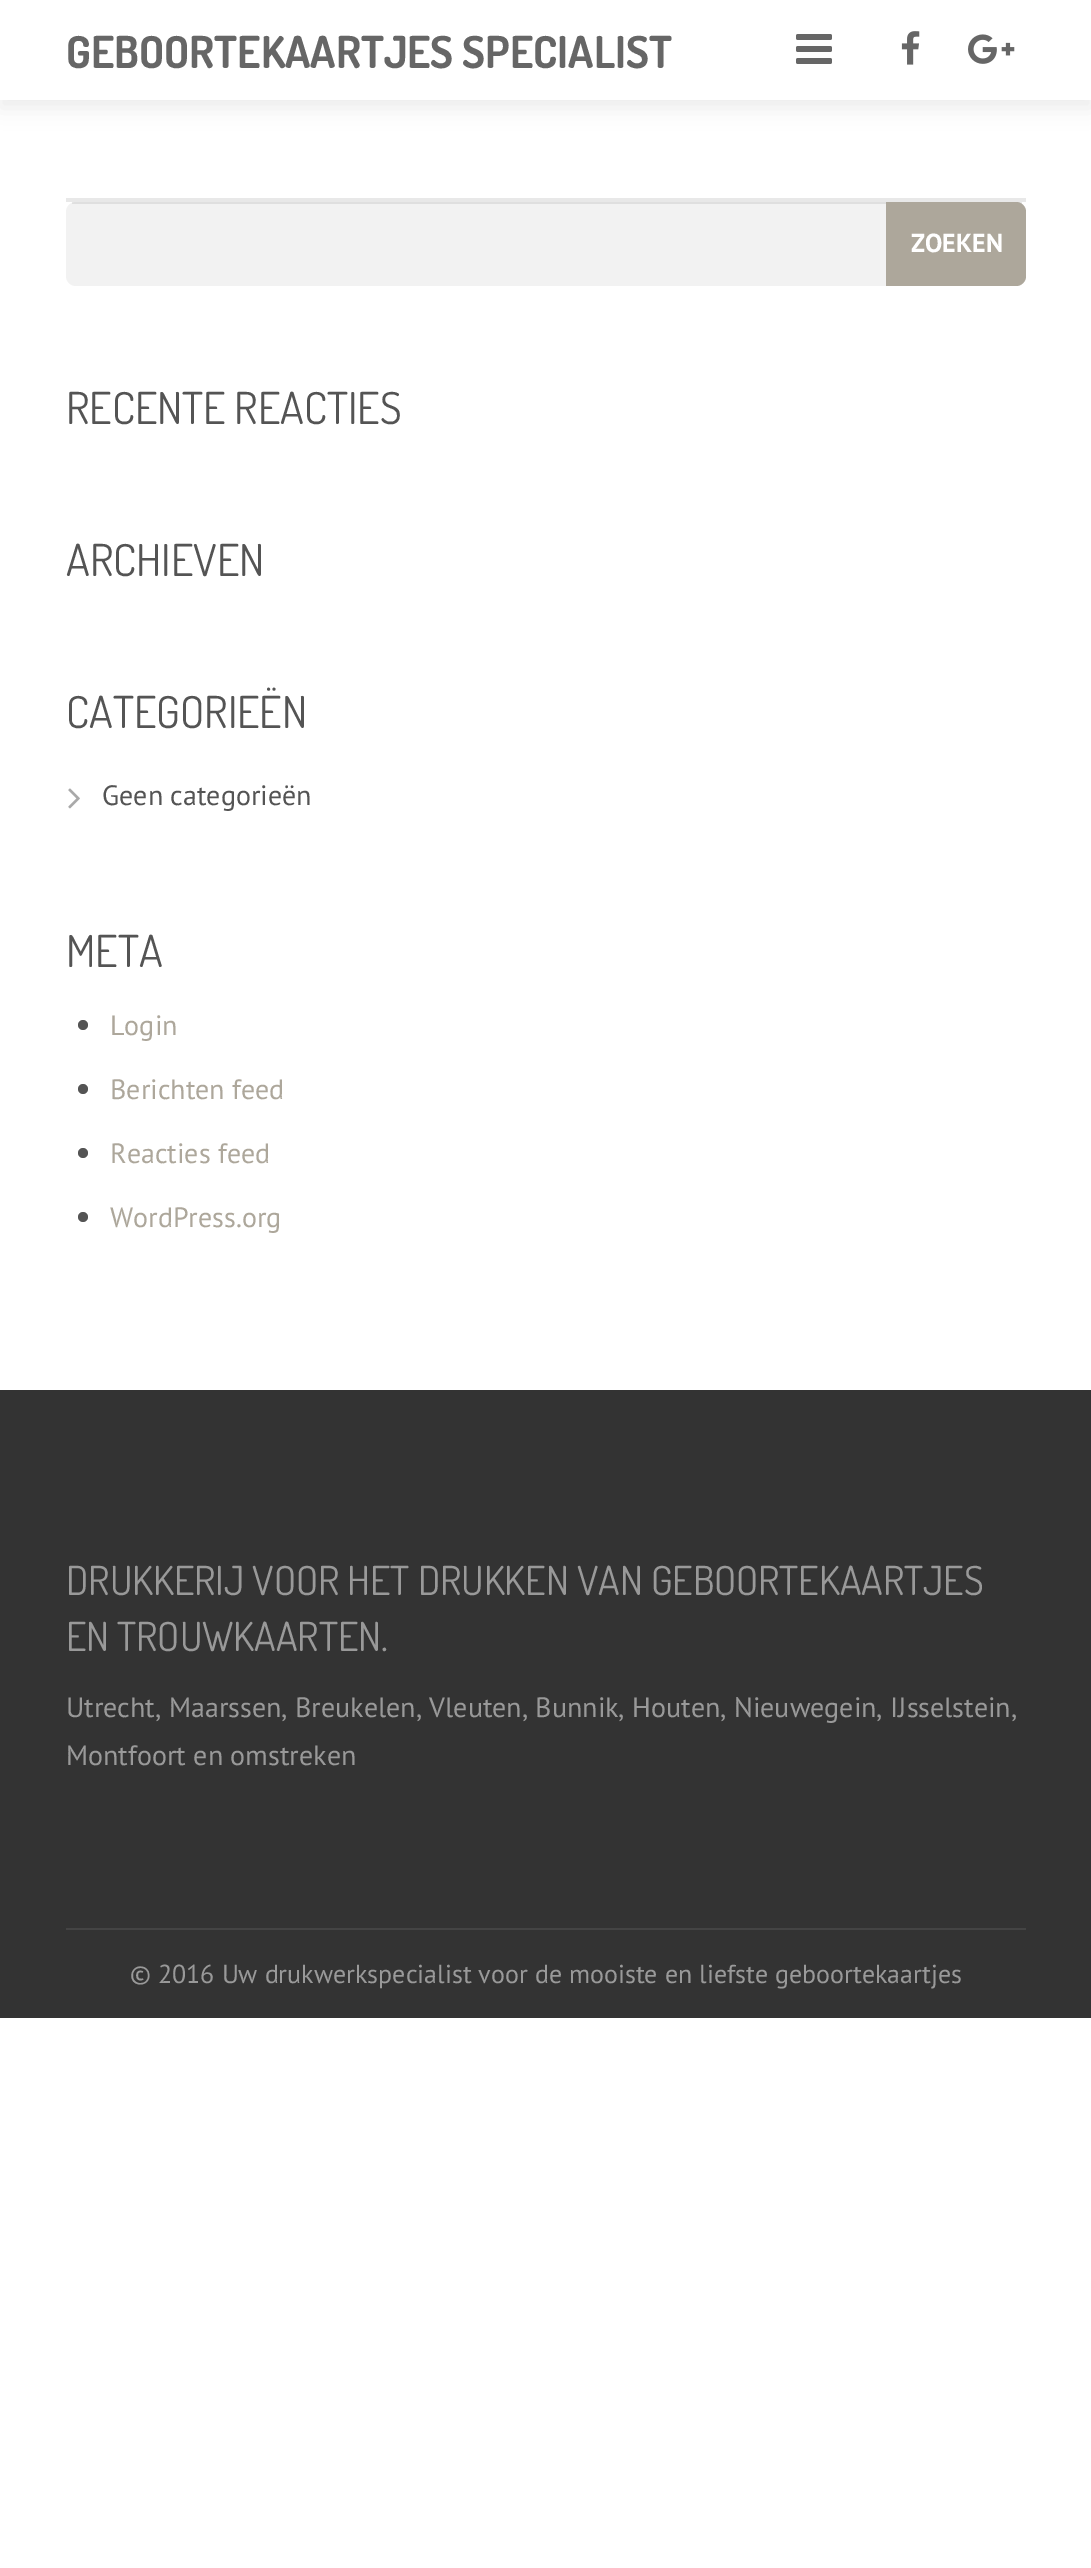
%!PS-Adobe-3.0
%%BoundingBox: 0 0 1091 2568
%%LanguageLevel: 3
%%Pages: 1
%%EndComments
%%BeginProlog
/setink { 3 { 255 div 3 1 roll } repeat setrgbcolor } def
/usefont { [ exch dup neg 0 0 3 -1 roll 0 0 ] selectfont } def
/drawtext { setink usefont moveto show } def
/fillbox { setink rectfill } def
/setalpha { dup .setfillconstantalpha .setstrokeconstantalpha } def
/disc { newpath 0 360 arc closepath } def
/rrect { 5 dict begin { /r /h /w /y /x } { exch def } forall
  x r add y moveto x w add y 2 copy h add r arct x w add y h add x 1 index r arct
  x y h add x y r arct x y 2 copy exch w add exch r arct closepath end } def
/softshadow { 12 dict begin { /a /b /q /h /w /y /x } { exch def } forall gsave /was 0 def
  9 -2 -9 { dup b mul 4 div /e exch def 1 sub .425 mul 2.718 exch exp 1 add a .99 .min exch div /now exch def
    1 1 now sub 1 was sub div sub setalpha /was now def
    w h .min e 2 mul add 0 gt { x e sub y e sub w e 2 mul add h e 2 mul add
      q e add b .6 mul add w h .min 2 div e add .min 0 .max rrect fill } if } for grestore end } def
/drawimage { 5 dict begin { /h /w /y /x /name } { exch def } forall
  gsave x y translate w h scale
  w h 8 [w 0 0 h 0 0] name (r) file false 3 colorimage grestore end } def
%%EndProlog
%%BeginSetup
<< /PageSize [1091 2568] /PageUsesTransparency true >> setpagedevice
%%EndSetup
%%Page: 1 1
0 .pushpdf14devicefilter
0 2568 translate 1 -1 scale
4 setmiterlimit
0 0 1091 2568 255 255 255 fillbox
0 0 0 setink
0 8 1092 100 0 10 0.07 softshadow
0 0 1091 100 255 255 255 fillbox
(GEBOORTEKAARTJES SPECIALIST) 66 68 /Dosis-Bold 44 102 102 102 drawtext
(assets/img1.rgb) 796 34 36 30 drawimage
(assets/img2.rgb) 901 31 19 34 drawimage
(assets/img3.rgb) 968 34 47 30 drawimage
66 198 960 4 232 232 232 fillbox
242 242 242 setink
66 202 960 84 10 rrect fill
0.08 setalpha
72 202 950 2 0 0 0 fillbox
1 setalpha
173 167 155 setink
886 202 moveto 1016 202 lineto 1021.5 202 1026 206.5 1026 212 curveto 1026 276 lineto 1026 281.5 1021.5 286 1016 286 curveto 886 286 lineto closepath fill
(ZOEKEN) 911 252 /PTSans-Bold 26 255 255 255 drawtext
(RECENTE REACTIES) 66 424 /Dosis-Regular 44 84 84 84 drawtext
(ARCHIEVEN) 66 576 /Dosis-Regular 44 84 84 84 drawtext
(CATEGORIEËN) 66 728 /Dosis-Regular 44 84 84 84 drawtext
(assets/img4.rgb) 68 788 12 21 drawimage
(Geen categorieën) 102 805 /PTSans-Regular 28 84 84 84 drawtext
(META) 66 967 /Dosis-Regular 44 84 84 84 drawtext
83 1025 5 disc fill
(Login) 110 1035 /PTSans-Regular 28 173 167 155 drawtext
84 84 84 setink
83 1089 5 disc fill
(Berichten feed) 110 1099 /PTSans-Regular 28 173 167 155 drawtext
84 84 84 setink
83 1153 5 disc fill
(Reacties feed) 110 1163 /PTSans-Regular 28 173 167 155 drawtext
84 84 84 setink
83 1217 5 disc fill
(WordPress.org) 110 1227 /PTSans-Regular 28 173 167 155 drawtext
0 1390 1091 628 51 51 51 fillbox
66 1928 960 2 68 68 68 fillbox
(DRUKKERIJ VOOR HET DRUKKEN VAN GEBOORTEKAARTJES) 66 1595 /Dosis-Regular 40 153 153 153 drawtext
(EN TROUWKAARTEN.) 66 1651 /Dosis-Regular 40 153 153 153 drawtext
(Utrecht, Maarssen, Breukelen, Vleuten, Bunnik, Houten, Nieuwegein, IJsselstein,) 66 1717 /PTSans-Regular 28 153 153 153 drawtext
(Montfoort en omstreken) 66 1765 /PTSans-Regular 28 153 153 153 drawtext
(© 2016 Uw drukwerkspecialist voor de mooiste en liefste geboortekaartjes) 130 1983 /PTSans-Regular 26 153 153 153 drawtext
.poppdf14devicefilter showpage
%%EOF
